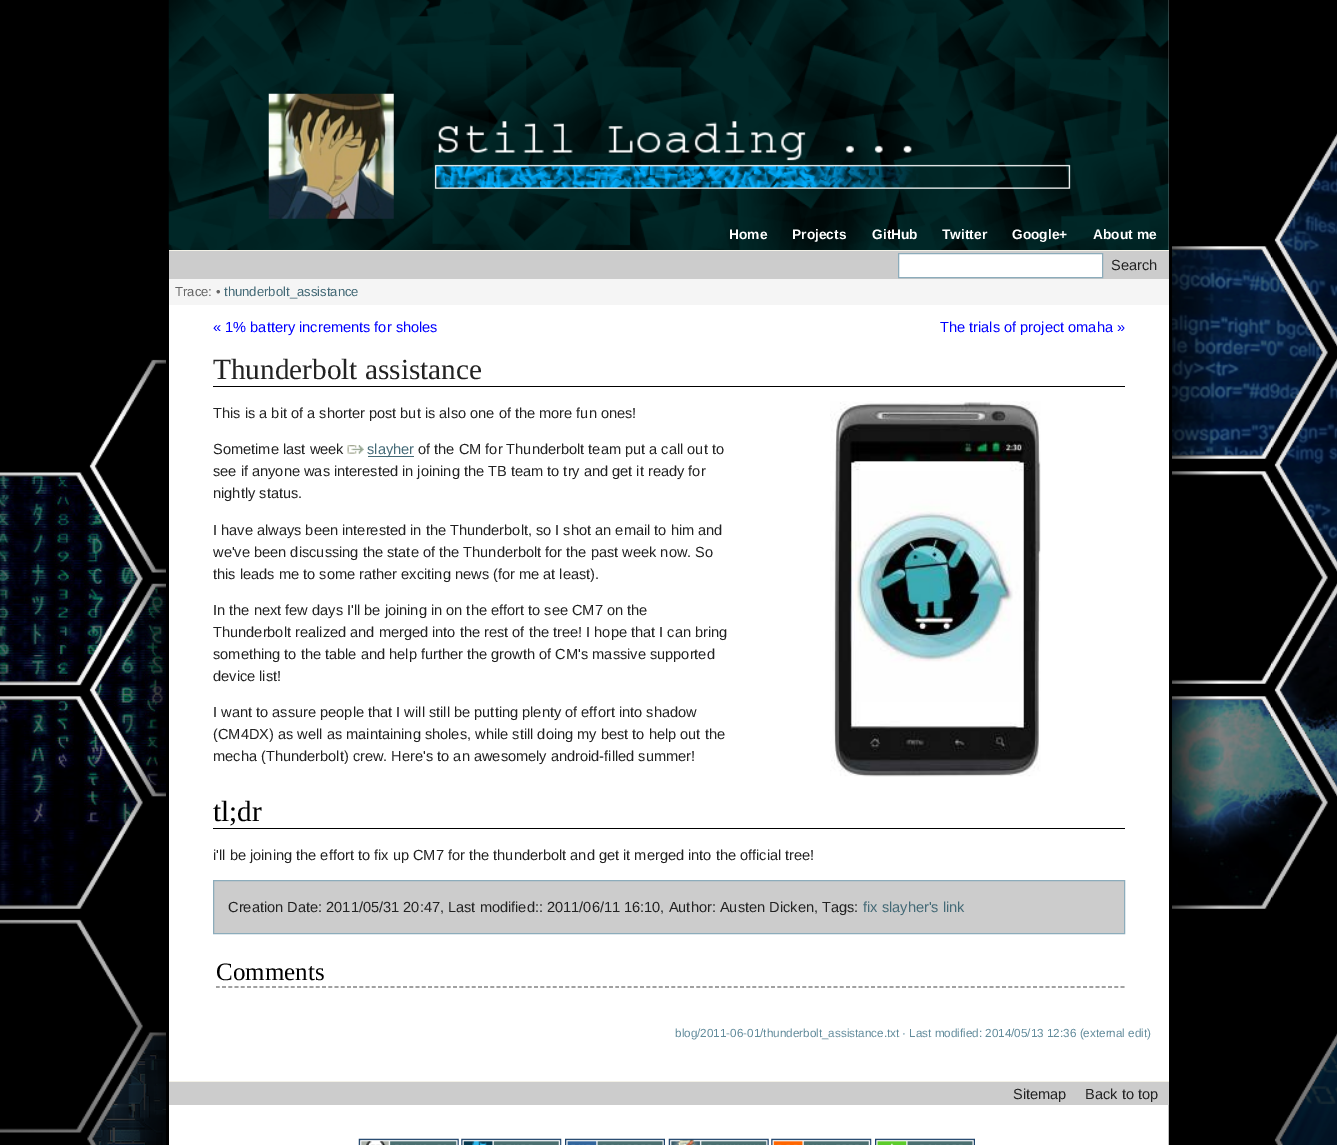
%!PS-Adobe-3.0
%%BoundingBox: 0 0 1337 1145
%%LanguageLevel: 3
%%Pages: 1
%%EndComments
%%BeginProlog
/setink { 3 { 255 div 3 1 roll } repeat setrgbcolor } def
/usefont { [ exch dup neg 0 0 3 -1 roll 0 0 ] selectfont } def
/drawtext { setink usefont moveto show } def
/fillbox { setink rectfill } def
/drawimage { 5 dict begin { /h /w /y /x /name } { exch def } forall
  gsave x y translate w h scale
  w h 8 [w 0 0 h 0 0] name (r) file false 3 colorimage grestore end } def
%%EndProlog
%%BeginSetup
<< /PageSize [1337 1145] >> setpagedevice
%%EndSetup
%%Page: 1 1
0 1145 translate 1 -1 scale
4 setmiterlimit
0 0 1337 1145 255 255 255 fillbox
(assets/img1.rgb) 0 0 1337 1145 drawimage
1169 246 3 663 0 0 0 fillbox
166 0 3 1145 0 0 0 fillbox
(assets/img2.rgb) 168 0 1001 250 drawimage
(assets/img3.rgb) 268 93 803 126 drawimage
(Home) 729 239 /LiberationSans-Bold 13.75 255 255 255 drawtext
(Projects) 792 239 /LiberationSans-Bold 13.75 255 255 255 drawtext
(GitHub) 872 239 /LiberationSans-Bold 13.75 255 255 255 drawtext
(Twitter) 942 239 /LiberationSans-Bold 13.75 255 255 255 drawtext
(Google+) 1012 239 /LiberationSans-Bold 13.75 255 255 255 drawtext
(About me) 1093 239 /LiberationSans-Bold 13.75 255 255 255 drawtext
169 251 1000 28 204 204 204 fillbox
169 250 1000 1 243 241 231 fillbox
255 255 255 setink
898.5 253.5 moveto 1102.5 253.5 lineto 1102.5 277.5 lineto 898.5 277.5 lineto closepath gsave fill grestore
140 172 187 setink
stroke
(Search) 1111 270 /LiberationSans-Regular 14.6 34 34 34 drawtext
169 279 1000 26 245 245 245 fillbox
(Trace: •) 175 296 /LiberationSans-Regular 13.1 102 102 102 drawtext
(thunderbolt_assistance) 224 296 /LiberationSans-Regular 13.1 67 105 118 drawtext
1168 305 1 776 255 255 255 fillbox
(« 1% battery increments for sholes) 213 332 /LiberationSans-Regular 14.6 0 0 255 drawtext
(The trials of project omaha ») 940 332 /LiberationSans-Regular 14.6 0 0 255 drawtext
213 386 912 1 0 0 0 fillbox
(Thunderbolt assistance) 213 379 /LiberationSerif-Regular 29.25 34 34 34 drawtext
(This is a bit of a shorter post but is also one of the more fun ones!) 213 418 /LiberationSans-Regular 14.6 34 34 34 drawtext
(assets/img4.rgb) 830 401 211 376 drawimage
(Sometime last week) 213 454 /LiberationSans-Regular 14.6 34 34 34 drawtext
(assets/img5.rgb) 347 445 17 9 drawimage
368 456 46 1 67 105 118 fillbox
(slayher) 367 454 /LiberationSans-Regular 14.6 67 105 118 drawtext
(of the CM for Thunderbolt team put a call out to) 418 454 /LiberationSans-Regular 14.6 34 34 34 drawtext
(see if anyone was interested in joining the TB team to try and get it ready for) 213 476 /LiberationSans-Regular 14.6 34 34 34 drawtext
(nightly status.) 213 498 /LiberationSans-Regular 14.6 34 34 34 drawtext
(I have always been interested in the Thunderbolt, so I shot an email to him and) 213 535 /LiberationSans-Regular 14.6 34 34 34 drawtext
(we've been discussing the state of the Thunderbolt for the past week now.) 213 557 /LiberationSans-Regular 14.6 34 34 34 drawtext
(So) 695 557 /LiberationSans-Regular 14.6 34 34 34 drawtext
(this leads me to some rather exciting news \(for me at least\).) 213 579 /LiberationSans-Regular 14.6 34 34 34 drawtext
(In the next few days I'll be joining in on the effort to see CM7 on the) 213 615 /LiberationSans-Regular 14.6 34 34 34 drawtext
(Thunderbolt realized and merged into the rest of the tree! I hope that I can bring) 213 637 /LiberationSans-Regular 14.6 34 34 34 drawtext
(something to the table and help further the growth of CM's massive supported) 213 659 /LiberationSans-Regular 14.6 34 34 34 drawtext
(device list!) 213 681 /LiberationSans-Regular 14.6 34 34 34 drawtext
(I want to assure people that I will still be putting plenty of effort into shadow) 213 717 /LiberationSans-Regular 14.6 34 34 34 drawtext
(\(CM4DX\) as well as maintaining sholes, while still doing my best to help out the) 213 739 /LiberationSans-Regular 14.6 34 34 34 drawtext
(mecha \(Thunderbolt\) crew. Here's to an awesomely android-filled summer!) 213 761 /LiberationSans-Regular 14.6 34 34 34 drawtext
213 828 912 1 0 0 0 fillbox
(tl;dr) 213 821 /LiberationSerif-Regular 29.25 0 0 0 drawtext
(i'll be joining the effort to fix up CM7 for the thunderbolt and get it merged into the official tree!) 213 860 /LiberationSans-Regular 14.6 34 34 34 drawtext
204 204 204 setink
213.5 880.5 moveto 1124.5 880.5 lineto 1124.5 933.5 lineto 213.5 933.5 lineto closepath gsave fill grestore
140 172 187 setink
stroke
(Creation Date: 2011/05/31 20:47, Last modified:: 2011/06/11 16:10, Author: Austen Dicken, Tags:) 228 912 /LiberationSans-Regular 14.6 34 34 34 drawtext
(fix slayher's link) 863 912 /LiberationSans-Regular 14.6 67 105 118 drawtext
128 128 128 setink
1.2 setlinewidth
[3.75 2.49] 0 setdash
216 987 moveto 1125 987 lineto stroke
(Comments) 216 980 /LiberationSerif-Regular 25 0 0 0 drawtext
(blog/2011-06-01/thunderbolt_assistance.txt) 675 1037 /LiberationSans-Regular 11.7 99 140 156 drawtext
(· Last modified: 2014/05/13 12:36 \(external edit\)) 902 1037 /LiberationSans-Regular 11.7 99 140 156 drawtext
169 1082 1000 23 204 204 204 fillbox
169 1081 1000 1 243 241 231 fillbox
(Sitemap) 1013 1099 /LiberationSans-Regular 14.6 34 34 34 drawtext
(Back to top) 1085 1099 /LiberationSans-Regular 14.6 34 34 34 drawtext
(assets/img6.rgb) 358 1138 101 7 drawimage
(assets/img7.rgb) 461 1138 101 7 drawimage
(assets/img8.rgb) 565 1138 100 7 drawimage
(assets/img9.rgb) 668 1138 101 7 drawimage
(assets/img10.rgb) 771 1138 101 7 drawimage
(assets/img11.rgb) 875 1138 100 7 drawimage
showpage
%%EOF
